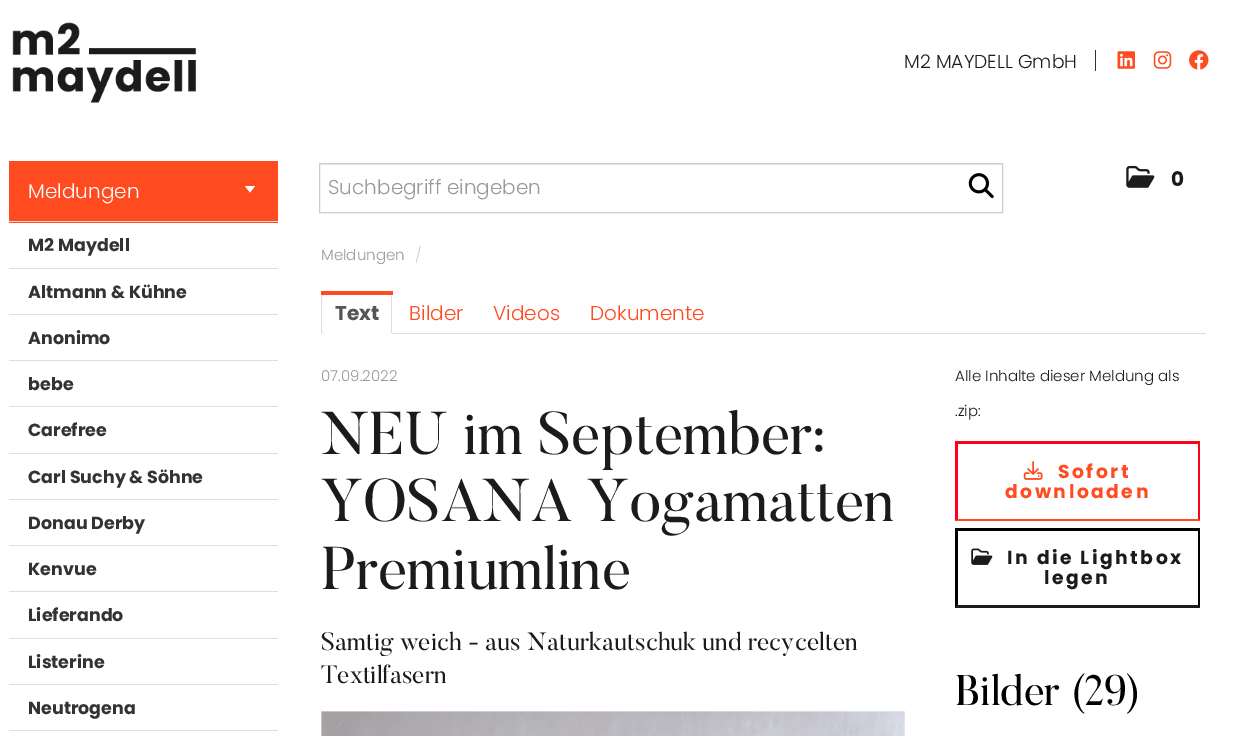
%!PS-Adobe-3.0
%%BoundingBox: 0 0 1240 736
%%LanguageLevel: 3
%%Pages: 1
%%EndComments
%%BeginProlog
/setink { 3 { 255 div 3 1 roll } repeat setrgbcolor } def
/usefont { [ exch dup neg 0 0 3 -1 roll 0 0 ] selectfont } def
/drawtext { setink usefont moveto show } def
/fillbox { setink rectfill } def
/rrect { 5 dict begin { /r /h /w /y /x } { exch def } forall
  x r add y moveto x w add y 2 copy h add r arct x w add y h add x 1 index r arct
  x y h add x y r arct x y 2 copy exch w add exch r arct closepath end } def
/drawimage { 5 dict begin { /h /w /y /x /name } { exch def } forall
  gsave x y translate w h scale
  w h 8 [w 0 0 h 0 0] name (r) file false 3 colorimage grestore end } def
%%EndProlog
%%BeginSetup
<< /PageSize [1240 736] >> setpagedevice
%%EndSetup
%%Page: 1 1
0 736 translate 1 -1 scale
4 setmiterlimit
0 0 1240 736 255 255 255 fillbox
(assets/img1.rgb) 12 22 185 81 drawimage
1095 50 1 21 51 51 51 fillbox
(M2 MAYDELL GmbH) 904 68 /Poppins-Light 18.75 28 27 28 drawtext
(assets/img2.rgb) 1117 51 18 18 drawimage
(assets/img3.rgb) 1153 51 19 18 drawimage
(assets/img4.rgb) 1189 50 20 20 drawimage
320 164 681 1 236 236 236 fillbox
204 204 204 setink
319.5 163.5 683 49 rectstroke
(Suchbegriff eingeben) 328 194 /Poppins-Light 20 153 153 153 drawtext
(assets/img5.rgb) 968 173 26 26 drawimage
(assets/img6.rgb) 1126 165 29 23 drawimage
(0) 1171 186 /Poppins-Bold 20 28 27 28 drawtext
9 161 269 62 255 75 31 fillbox
9 221 269 1 221 221 221 fillbox
(Meldungen) 28 198 /Poppins-Light 20 255 255 255 drawtext
245 186 moveto 255 186 lineto 250 192.5 lineto closepath fill
9 268 269 1 222 222 222 fillbox
(M2 Maydell) 28 251 /Poppins-Bold 17.5 51 51 51 drawtext
9 314 269 1 222 222 222 fillbox
(Altmann & Kühne) 28 298 /Poppins-Bold 17.5 51 51 51 drawtext
9 360 269 1 222 222 222 fillbox
(Anonimo) 28 344 /Poppins-Bold 17.5 51 51 51 drawtext
9 406 269 1 222 222 222 fillbox
(bebe) 28 390 /Poppins-Bold 17.5 51 51 51 drawtext
9 453 269 1 222 222 222 fillbox
(Carefree) 28 436 /Poppins-Bold 17.5 51 51 51 drawtext
9 499 269 1 222 222 222 fillbox
(Carl Suchy & Söhne) 28 483 /Poppins-Bold 17.5 51 51 51 drawtext
9 545 269 1 222 222 222 fillbox
(Donau Derby) 28 529 /Poppins-Bold 17.5 51 51 51 drawtext
9 591 269 1 222 222 222 fillbox
(Kenvue) 28 575 /Poppins-Bold 17.5 51 51 51 drawtext
9 638 269 1 222 222 222 fillbox
(Lieferando) 28 621 /Poppins-Bold 17.5 51 51 51 drawtext
9 684 269 1 222 222 222 fillbox
(Listerine) 28 668 /Poppins-Bold 17.5 51 51 51 drawtext
9 730 269 1 222 222 222 fillbox
(Neutrogena) 28 714 /Poppins-Bold 17.5 51 51 51 drawtext
(Meldungen) 321 260 /Poppins-Light 15 153 153 153 drawtext
(/) 415 260 /Poppins-Light 15 204 204 204 drawtext
321 291 72 4 255 75 31 fillbox
321 333 885 1 221 221 221 fillbox
255 255 255 setink
321 295 72 39 2.5 rrect fill
221 221 221 setink
392 298 moveto 392 296 391 295 390 295 curveto 391.5 295 391 297 391 298 curveto 391 331 lineto 390.5 332 lineto 391.5 333 lineto 392 331 lineto closepath fill
324 295 moveto 322.5 296 lineto 322 297.5 lineto 322 331.5 lineto 323 332 lineto 322 333 lineto 321 332.5 lineto 321 296.5 lineto 321.5 295.5 322.5 295 324 295 curveto closepath fill
(Text) 335 320 /Poppins-Bold 20 85 85 85 drawtext
(Bilder) 409 320 /Poppins-Light 20 255 75 31 drawtext
(Videos) 493 320 /Poppins-Light 20 255 75 31 drawtext
(Dokumente) 590 320 /Poppins-Light 20 255 75 31 drawtext
(07.09.2022) 321 381 /Poppins-Light 15 153 153 153 drawtext
(NEU im September:) 321 454 /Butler-Regular 60 28 27 28 drawtext
(YOSANA Yogamatten) 321 521 /Butler-Regular 60 28 27 28 drawtext
(Premiumline) 321 589 /Butler-Regular 60 28 27 28 drawtext
(Samtig weich - aus Naturkautschuk und recycelten) 321 650 /Butler-Regular 25 28 27 28 drawtext
(Textilfasern) 321 683 /Butler-Regular 25 28 27 28 drawtext
321 711 584 25 246 246 246 fillbox
(assets/img7.rgb) 321 711 584 25 drawimage
(Alle Inhalte dieser Meldung als) 955 381 /Poppins-Light 15 28 27 28 drawtext
(.zip:) 955 416 /Poppins-Light 15 28 27 28 drawtext
955 441 245 3 255 0 22 fillbox
1200 441 moveto 1200 521 lineto 1198 519 lineto 1198 444 lineto closepath fill
255 75 31 setink
1200 521 moveto 955 521 lineto 958 519 lineto 1198 519 lineto closepath fill
255 0 22 setink
955 521 moveto 955 441 lineto 958 444 lineto 958 519 lineto closepath fill
(assets/img8.rgb) 1023 461 20 19 drawimage
/Poppins-Bold 18.75 usefont
255 75 31 setink
1058 478 moveto 2.5 0 (Sofort) ashow
1005 498 moveto 2.5 0 (downloaden) ashow
955 528 245 3 0 0 0 fillbox
1200 528 moveto 1200 608 lineto 1198 605 lineto 1198 530 lineto closepath fill
28 27 28 setink
1200 608 moveto 955 608 lineto 958 605 lineto 1198 605 lineto closepath fill
0 0 0 setink
955 608 moveto 955 528 lineto 958 530 lineto 958 605 lineto closepath fill
(assets/img9.rgb) 971 548 22 17 drawimage
28 27 28 setink
1007 564 moveto 2.5 0 (In die Lightbox) ashow
1044 584 moveto 2.5 0 (legen) ashow
(Bilder \(29\)) 955 705 /Butler-Regular 42.5 0 0 0 drawtext
showpage
%%EOF
